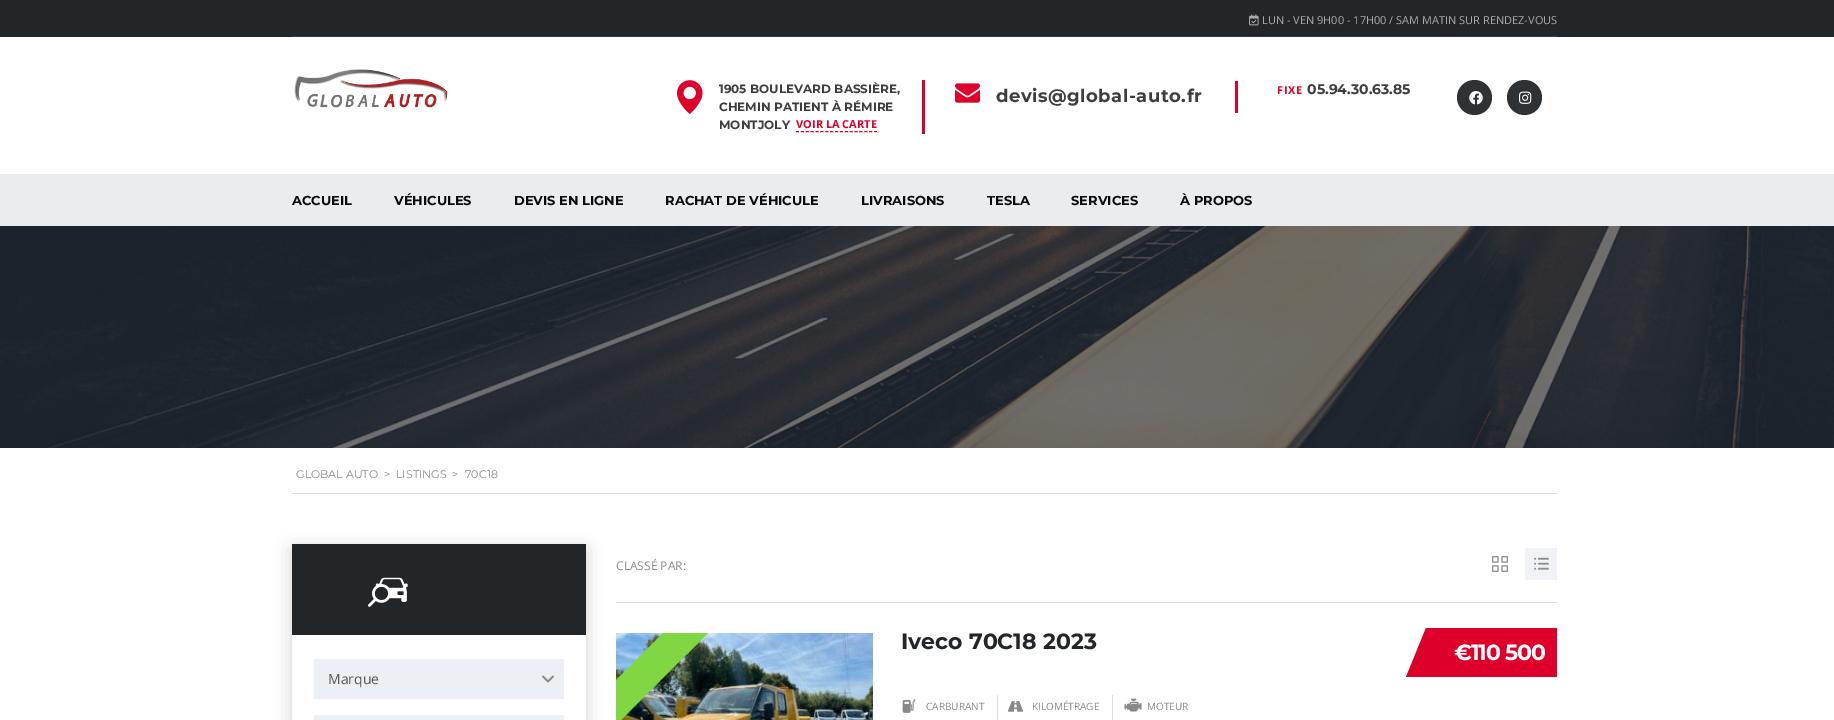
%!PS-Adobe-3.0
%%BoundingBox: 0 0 1834 720
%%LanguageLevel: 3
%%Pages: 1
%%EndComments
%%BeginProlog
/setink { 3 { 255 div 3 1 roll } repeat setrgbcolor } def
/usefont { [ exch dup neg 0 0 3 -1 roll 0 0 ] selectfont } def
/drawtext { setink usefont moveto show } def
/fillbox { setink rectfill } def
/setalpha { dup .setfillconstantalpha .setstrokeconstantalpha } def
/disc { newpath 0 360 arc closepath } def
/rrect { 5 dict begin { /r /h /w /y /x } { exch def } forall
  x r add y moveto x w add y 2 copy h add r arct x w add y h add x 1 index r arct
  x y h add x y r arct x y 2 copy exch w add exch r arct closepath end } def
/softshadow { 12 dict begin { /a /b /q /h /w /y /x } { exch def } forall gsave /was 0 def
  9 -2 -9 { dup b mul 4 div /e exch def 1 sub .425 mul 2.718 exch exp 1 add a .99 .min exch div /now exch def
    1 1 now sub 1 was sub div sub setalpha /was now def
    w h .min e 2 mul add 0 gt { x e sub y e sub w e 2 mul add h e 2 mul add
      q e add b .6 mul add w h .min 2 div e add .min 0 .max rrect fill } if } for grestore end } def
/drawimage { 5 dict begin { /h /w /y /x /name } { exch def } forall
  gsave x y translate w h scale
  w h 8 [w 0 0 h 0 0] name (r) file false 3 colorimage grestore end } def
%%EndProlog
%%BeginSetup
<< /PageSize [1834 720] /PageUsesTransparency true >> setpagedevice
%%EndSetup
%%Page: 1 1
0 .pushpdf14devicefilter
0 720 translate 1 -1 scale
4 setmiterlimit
0 0 1834 720 255 255 255 fillbox
0 0 1834 37 35 38 40 fillbox
292 36 1265 1 57 60 62 fillbox
(assets/img1.rgb) 1249 14 10 12 drawimage
(LUN - VEN 9H00 - 17H00 / SAM MATIN SUR RENDEZ-VOUS) 1262 24 /OpenSans-Regular 11 170 170 170 drawtext
(assets/img2.rgb) 294 69 154 39 drawimage
922 80 3 54 222 0 42 fillbox
(assets/img3.rgb) 677 80 26 34 drawimage
(1905 BOULEVARD BASSIÈRE,) 719 93 /Montserrat-Bold 12 62 62 62 drawtext
(CHEMIN PATIENT À RÉMIRE) 719 111 /Montserrat-Bold 12 62 62 62 drawtext
(MONTJOLY) 719 129 /Montserrat-Bold 12 62 62 62 drawtext
(VOIR LA CARTE) 796 128 /OpenSans-Bold 11 222 0 42 drawtext
[3 1.88] 0 setdash
796 131.5 moveto 877 131.5 lineto stroke
1235 81 3 32 222 0 42 fillbox
(assets/img4.rgb) 955 83 25 20 drawimage
/Montserrat-Bold 18 usefont
62 62 62 setink
996 102 moveto 0.5 0 (devis@global-auto.fr) ashow
/OpenSans-Bold 11 usefont
222 0 42 setink
1277 94 moveto 0.5 0 (FIXE) ashow
(05.94.30.63.85) 1307 94 /Montserrat-Bold 14 62 62 62 drawtext
47 50 52 setink
1474.5 97.5 17.5 disc fill
(assets/img5.rgb) 1469 91 14 14 drawimage
1524.5 97.5 17.5 disc fill
(assets/img6.rgb) 1519 91 13 13 drawimage
0 174 1834 52 234 237 240 fillbox
(ACCUEIL) 292 205 /Montserrat-Bold 13 11 11 11 drawtext
(VÉHICULES) 394 205 /Montserrat-Bold 13 11 11 11 drawtext
(DEVIS EN LIGNE) 514 205 /Montserrat-Bold 13 11 11 11 drawtext
(RACHAT DE VÉHICULE) 665 205 /Montserrat-Bold 13 11 11 11 drawtext
(LIVRAISONS) 861 205 /Montserrat-Bold 13 11 11 11 drawtext
(TESLA) 987 205 /Montserrat-Bold 13 11 11 11 drawtext
(SERVICES) 1071 205 /Montserrat-Bold 13 11 11 11 drawtext
(À PROPOS) 1180 205 /Montserrat-Bold 13 11 11 11 drawtext
(assets/img7.rgb) 0 226 1834 222 drawimage
292 493 1265 1 221 221 221 fillbox
(GLOBAL AUTO) 296 478 /Montserrat-Regular 11 136 136 136 drawtext
(>) 384 478 /Montserrat-Regular 11 136 136 136 drawtext
(LISTINGS) 396 478 /Montserrat-Regular 11 136 136 136 drawtext
(>) 452 478 /Montserrat-Regular 11 136 136 136 drawtext
(70C18) 465 478 /Montserrat-Regular 11 136 136 136 drawtext
gsave
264 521 moveto 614 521 lineto 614 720 lineto 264 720 lineto closepath 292 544 moveto 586 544 lineto 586 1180 lineto 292 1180 lineto closepath eoclip newpath
0 0 0 setink
292 549 294 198 0 9 0.18 softshadow
grestore
292 544 294 91 35 38 40 fillbox
(assets/img8.rgb) 368 577 40 30 drawimage
314 659 250 40 236 239 243 fillbox
(Marque) 328 684 /OpenSans-Regular 14 85 85 85 drawtext
(assets/img9.rgb) 542 675 12 8 drawimage
314 715 250 5 236 239 243 fillbox
616 602 941 1 221 221 221 fillbox
(CLASSÉ PAR:) 616 570 /OpenSans-Regular 12 136 136 136 drawtext
(assets/img10.rgb) 1492 556 16 16 drawimage
1525 548 32 32 240 242 245 fillbox
(assets/img11.rgb) 1534 557 15 13 drawimage
(assets/img12.rgb) 616 633 257 87 drawimage
gsave
616 633 257 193 rectclip
129 215 66 setink
550 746 moveto 726 570 lineto 749 592 lineto 573 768 lineto closepath fill
grestore
(Iveco 70C18 2023) 901 649 /Montserrat-Bold 22 35 38 40 drawtext
222 0 42 setink
1426 628 moveto 1458 628 lineto 1438 677 lineto 1406 677 lineto closepath fill
1438 628 119 49 222 0 42 fillbox
255 255 255 setink
1454 660 moveto -1 0 (€110 500) ashow
997 695 1 25 221 221 221 fillbox
(assets/img13.rgb) 902 699 14 14 drawimage
(CARBURANT) 926 710 /OpenSans-Regular 10 136 136 136 drawtext
1112 695 1 25 221 221 221 fillbox
(assets/img14.rgb) 1008 701 15 11 drawimage
(KILOMÉTRAGE) 1032 710 /OpenSans-Regular 10 136 136 136 drawtext
(assets/img15.rgb) 1124 698 18 14 drawimage
(MOTEUR) 1147 710 /OpenSans-Regular 10 136 136 136 drawtext
.poppdf14devicefilter showpage
%%EOF
